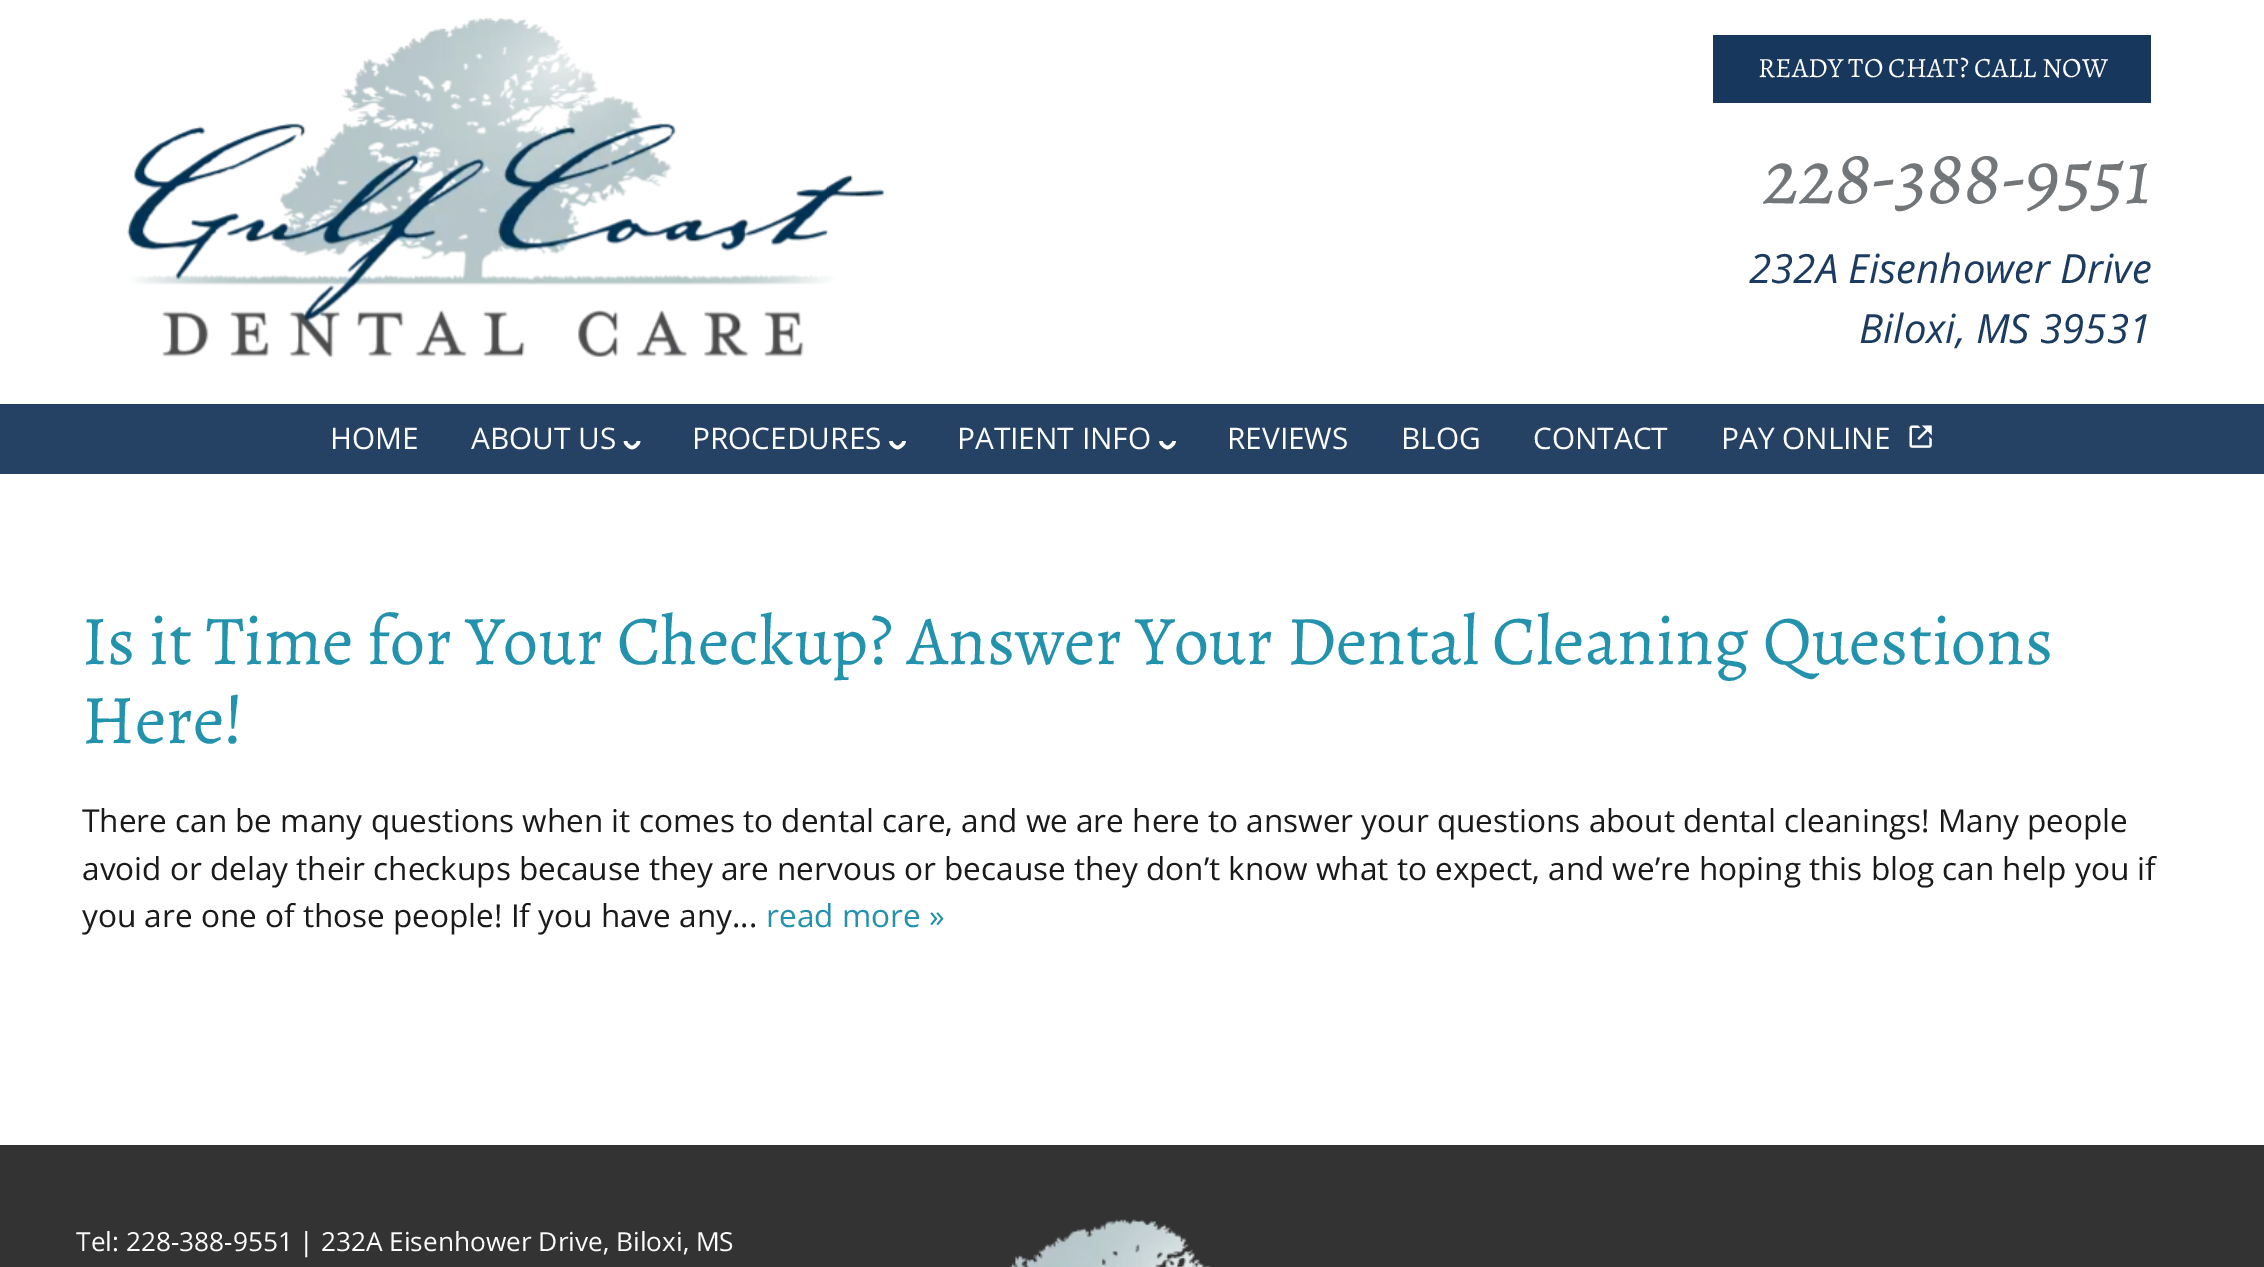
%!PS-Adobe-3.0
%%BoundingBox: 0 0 2264 1267
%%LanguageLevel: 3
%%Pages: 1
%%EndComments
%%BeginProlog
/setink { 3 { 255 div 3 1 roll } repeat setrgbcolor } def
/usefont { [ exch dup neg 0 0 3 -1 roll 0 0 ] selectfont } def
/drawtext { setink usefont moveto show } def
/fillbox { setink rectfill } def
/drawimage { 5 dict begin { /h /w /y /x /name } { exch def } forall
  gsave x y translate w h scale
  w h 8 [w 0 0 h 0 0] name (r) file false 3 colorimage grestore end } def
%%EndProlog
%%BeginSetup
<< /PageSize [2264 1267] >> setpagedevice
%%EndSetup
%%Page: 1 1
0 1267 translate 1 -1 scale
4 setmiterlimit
0 0 2264 1267 255 255 255 fillbox
(assets/img1.rgb) 127 18 757 339 drawimage
1713 35 438 68 24 55 92 fillbox
(READY TO CHAT? CALL NOW) 1758 77 /Alegreya-Regular 28 252 252 252 drawtext
(228-388-9551) 1763 203 /Alegreya-Italic 78.75 114 118 121 drawtext
(232A Eisenhower Drive) 1749 283 /OpenSans-Italic 40.25 28 59 96 drawtext
(Biloxi, MS 39531) 1859 343 /OpenSans-Italic 40.25 28 59 96 drawtext
0 404 2264 70 37 66 101 fillbox
(HOME) 330 449 /OpenSans-Regular 29.75 252 252 252 drawtext
(ABOUT US) 471 449 /OpenSans-Regular 29.75 252 252 252 drawtext
255 255 255 setink
3.5 setlinewidth
638.5 441 moveto 638.5 443 637.5 444 636.5 445 curveto 632.5 448.5 631.5 448.5 627.5 445 curveto 626.5 444 625.5 443 625.5 441 curveto stroke
(PROCEDURES) 692 449 /OpenSans-Regular 29.75 252 252 252 drawtext
255 255 255 setink
904 441 moveto 904 443 903 444 902 445 curveto 898 448.5 897 448.5 893 445 curveto 892 444 891 443 891 441 curveto stroke
(PATIENT INFO) 957 449 /OpenSans-Regular 29.75 252 252 252 drawtext
255 255 255 setink
1174 441 moveto 1174 443 1173 444 1172 445 curveto 1168 448.5 1167 448.5 1163 445 curveto 1162 444 1161 443 1161 441 curveto stroke
(REVIEWS) 1227 449 /OpenSans-Regular 29.75 252 252 252 drawtext
(BLOG) 1401 449 /OpenSans-Regular 29.75 252 252 252 drawtext
(CONTACT) 1533 449 /OpenSans-Regular 29.75 252 252 252 drawtext
(PAY ONLINE) 1721 449 /OpenSans-Regular 29.75 252 252 252 drawtext
(assets/img2.rgb) 1909 425 23 23 drawimage
(Is it Time for Your Checkup? Answer Your Dental Cleaning Questions) 82 664 /Alegreya-Regular 70 35 146 172 drawtext
(Here!) 82 743 /Alegreya-Regular 70 35 146 172 drawtext
(There can be many questions when it comes to dental care, and we are here to answer your questions about dental cleanings! Many people) 82 832 /OpenSans-Regular 31.5 26 26 26 drawtext
(avoid or delay their checkups because they are nervous or because they don’t know what to expect, and we’re hoping this blog can help you if) 82 880 /OpenSans-Regular 31.5 26 26 26 drawtext
(you are one of those people! If you have any...) 82 927 /OpenSans-Regular 31.5 26 26 26 drawtext
(read more ») 766 927 /OpenSans-Regular 31.5 35 146 172 drawtext
0 1145 2264 122 51 51 51 fillbox
(Tel: 228-388-9551 | 232A Eisenhower Drive, Biloxi, MS) 76 1251 /OpenSans-Regular 26.25 252 252 252 drawtext
(assets/img3.rgb) 1009 1219 203 48 drawimage
showpage
%%EOF
